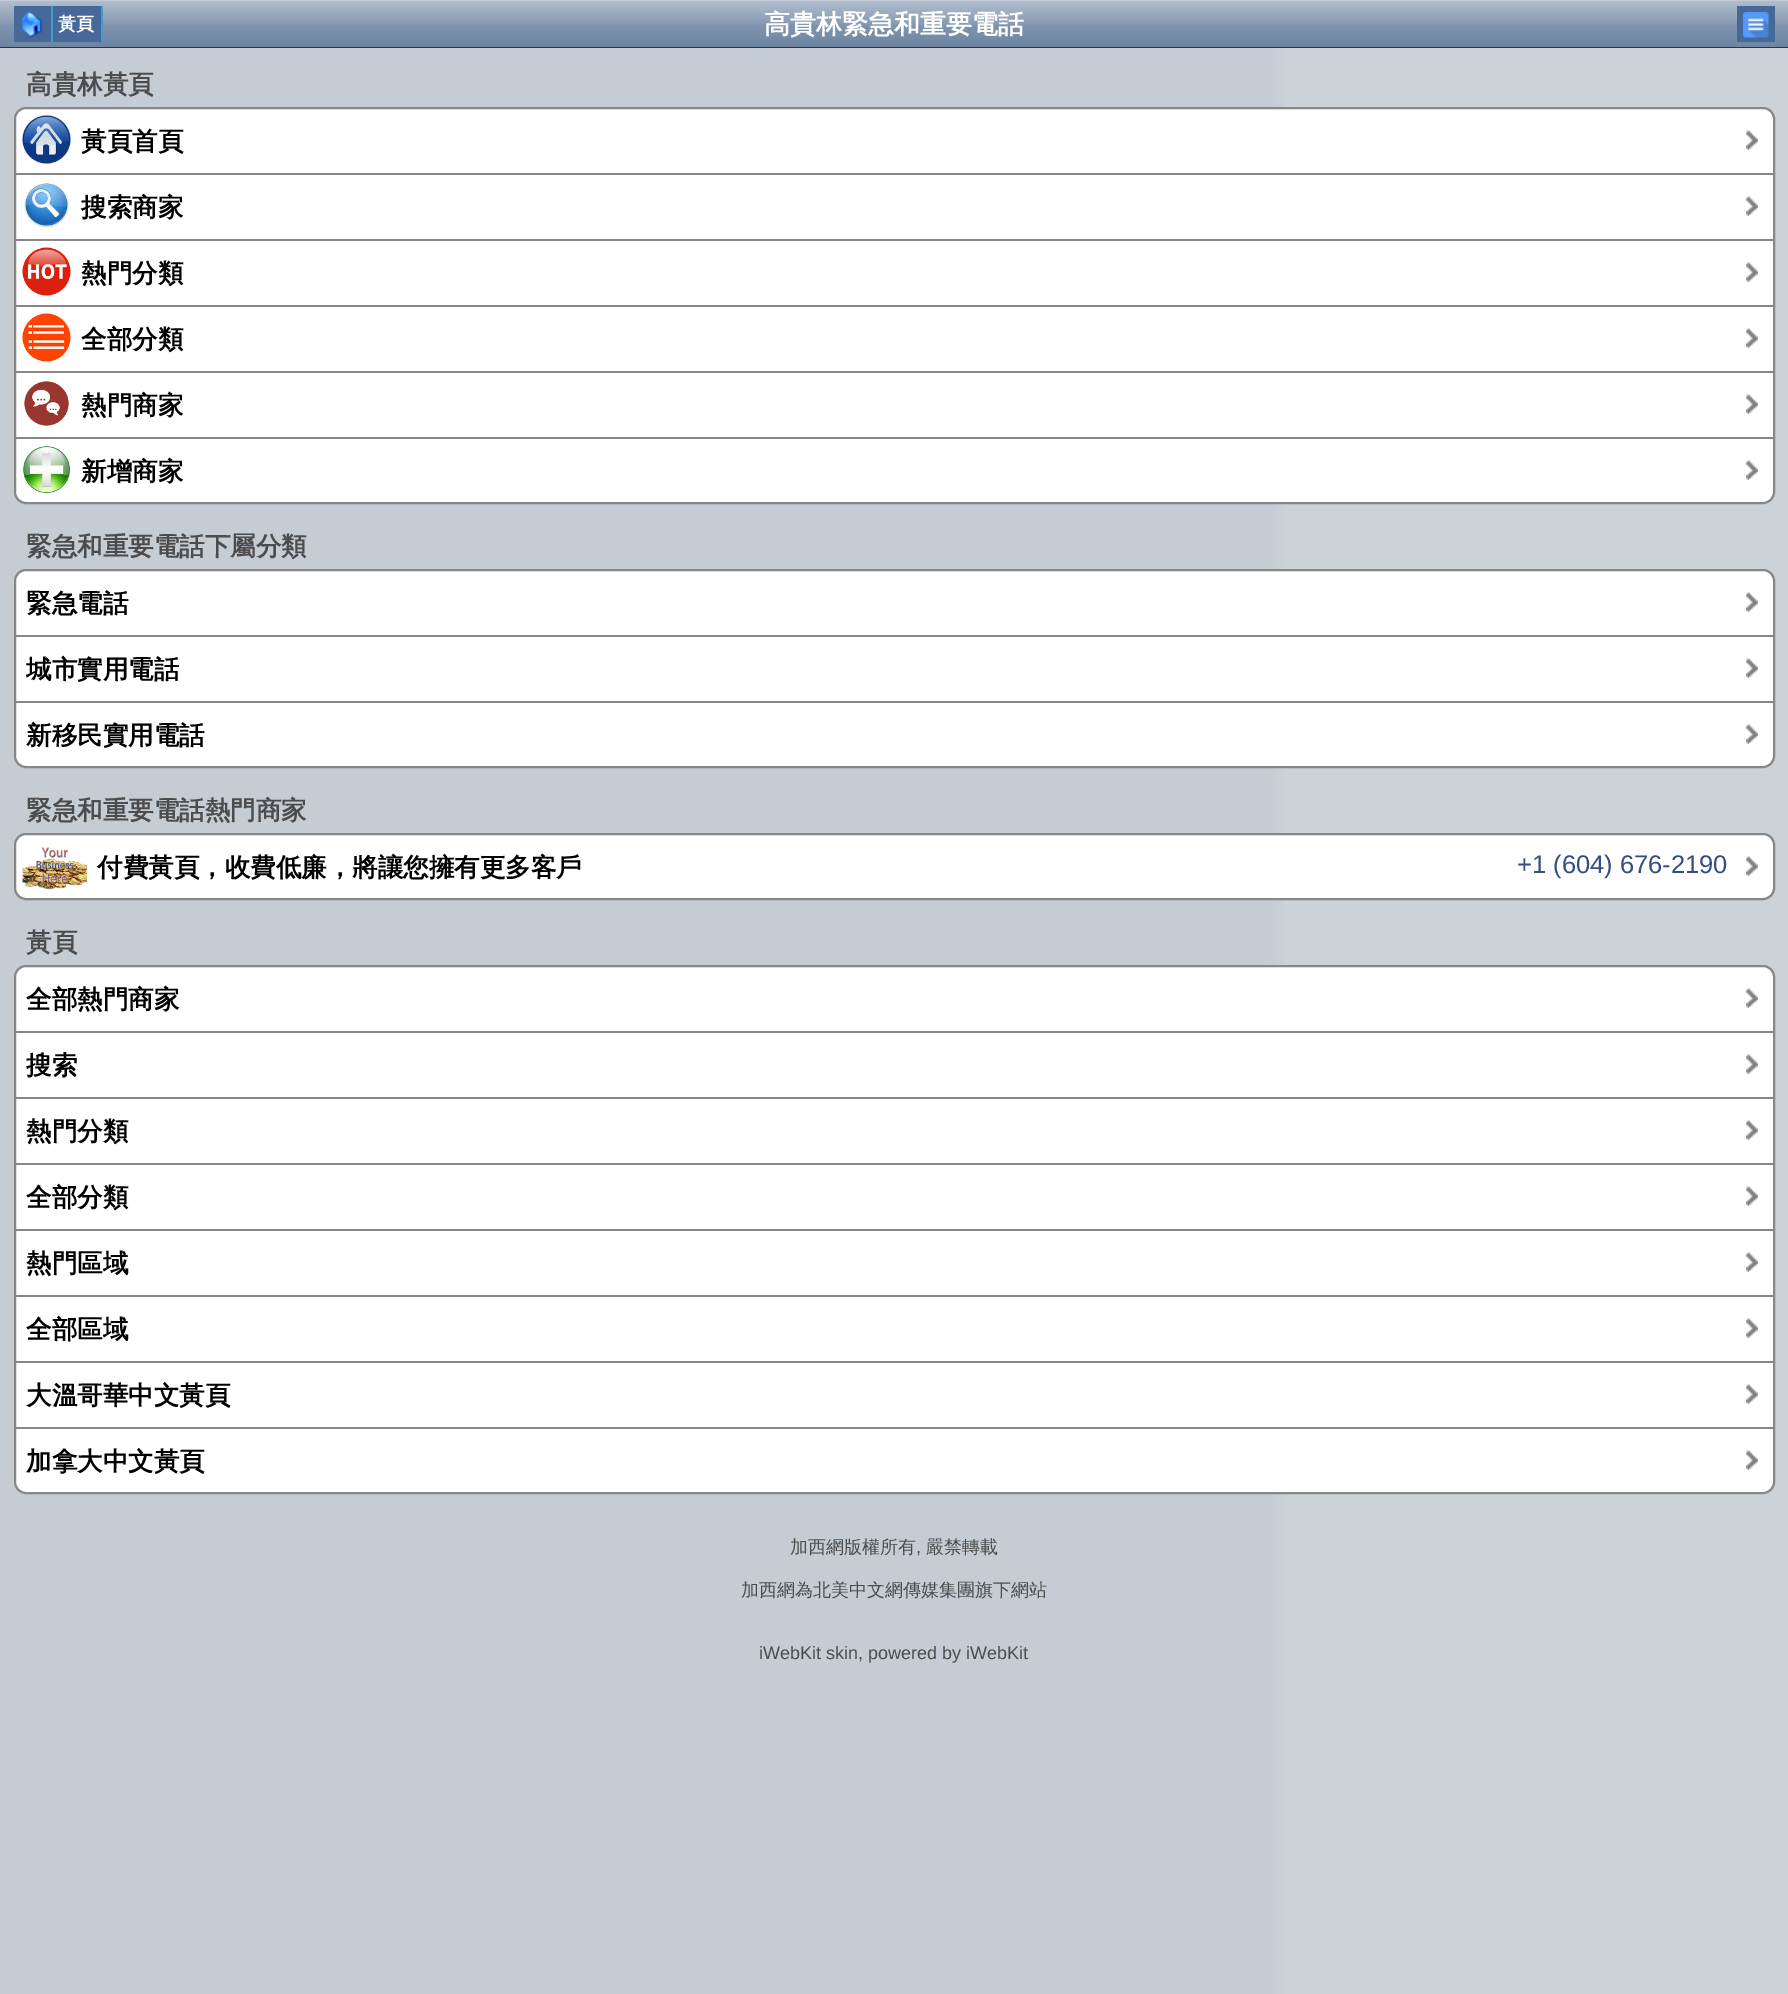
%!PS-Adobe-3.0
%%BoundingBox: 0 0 1788 1994
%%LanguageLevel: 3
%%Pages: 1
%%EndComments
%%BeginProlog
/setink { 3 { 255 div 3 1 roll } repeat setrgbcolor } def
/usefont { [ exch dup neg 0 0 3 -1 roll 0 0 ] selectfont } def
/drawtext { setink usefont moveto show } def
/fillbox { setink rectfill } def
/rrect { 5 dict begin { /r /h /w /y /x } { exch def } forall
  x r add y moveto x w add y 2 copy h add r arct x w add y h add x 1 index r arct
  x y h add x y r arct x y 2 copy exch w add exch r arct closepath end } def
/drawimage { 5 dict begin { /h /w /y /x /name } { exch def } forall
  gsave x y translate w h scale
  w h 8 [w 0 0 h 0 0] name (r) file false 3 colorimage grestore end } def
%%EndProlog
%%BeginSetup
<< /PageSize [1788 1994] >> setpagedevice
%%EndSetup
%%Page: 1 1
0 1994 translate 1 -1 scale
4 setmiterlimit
0 0 1788 1994 255 255 255 fillbox
gsave 0 48 moveto 1788 48 lineto 1788 1994 lineto 0 1994 lineto closepath clip newpath
<< /ShadingType 2 /ColorSpace /DeviceRGB /Coords [0 0 1788 0] /Extend [true true] /Function << /FunctionType 3 /Domain [0 1] /Functions [<< /FunctionType 2 /Domain [0 1] /C0 [0.773 0.8 0.831] /C1 [0.773 0.8 0.831] /N 1 >> << /FunctionType 2 /Domain [0 1] /C0 [0.773 0.8 0.831] /C1 [0.796 0.824 0.847] /N 1 >> << /FunctionType 2 /Domain [0 1] /C0 [0.796 0.824 0.847] /C1 [0.796 0.824 0.847] /N 1 >>] /Bounds [0.71 0.72] /Encode [0 1 0 1 0 1] >> >> shfill grestore
gsave 0 0 moveto 1788 0 lineto 1788 48 lineto 0 48 lineto closepath clip newpath
<< /ShadingType 2 /ColorSpace /DeviceRGB /Coords [0 0 0 48] /Extend [true true] /Function << /FunctionType 3 /Domain [0 1] /Functions [<< /FunctionType 2 /Domain [0 1] /C0 [0.804 0.835 0.875] /C1 [0.69 0.737 0.804] /N 1 >> << /FunctionType 2 /Domain [0 1] /C0 [0.69 0.737 0.804] /C1 [0.533 0.608 0.702] /N 1 >> << /FunctionType 2 /Domain [0 1] /C0 [0.533 0.608 0.702] /C1 [0.506 0.584 0.686] /N 1 >> << /FunctionType 2 /Domain [0 1] /C0 [0.506 0.584 0.686] /C1 [0.427 0.518 0.635] /N 1 >> << /FunctionType 2 /Domain [0 1] /C0 [0.427 0.518 0.635] /C1 [0.176 0.212 0.259] /N 1 >>] /Bounds [0.03 0.5 0.51 0.97] /Encode [0 1 0 1 0 1 0 1 0 1] >> >> shfill grestore
14 6 87 36 71 105 153 fillbox
51 6 2 36 71 153 204 fillbox
(assets/img1.rgb) 21 12 22 26 drawimage
101 6 2 36 71 153 204 fillbox
(黃頁) 58 30 /WenQuanYiZenHei-Bold 18 255 255 255 drawtext
(高貴林緊急和重要電話) 764 33 /WenQuanYiZenHei-Bold 26 255 255 255 drawtext
1737 6 38 36 71 105 153 fillbox
(assets/img2.rgb) 1743 12 26 26 drawimage
(高貴林黃頁) 26 93 /WenQuanYiZenHei-Bold 25.5 76 76 76 drawtext
255 255 255 setink
15 108 1759 395 11 rrect gsave fill grestore
135 135 135 setink
2 setlinewidth
stroke
(assets/img3.rgb) 22 115 49 49 drawimage
(黃頁首頁) 81 150 /WenQuanYiZenHei-Bold 25.5 0 0 0 drawtext
(assets/img4.rgb) 1746 130 12 20 drawimage
15 173 1758 2 135 135 135 fillbox
(assets/img5.rgb) 24 183 45 45 drawimage
(搜索商家) 81 216 /WenQuanYiZenHei-Bold 25.5 0 0 0 drawtext
(assets/img4.rgb) 1746 196 12 20 drawimage
15 239 1758 2 135 135 135 fillbox
(assets/img6.rgb) 22 247 49 49 drawimage
(熱門分類) 81 282 /WenQuanYiZenHei-Bold 25.5 0 0 0 drawtext
(assets/img4.rgb) 1746 262 12 20 drawimage
15 305 1758 2 135 135 135 fillbox
(assets/img7.rgb) 22 313 49 49 drawimage
(全部分類) 81 348 /WenQuanYiZenHei-Bold 25.5 0 0 0 drawtext
(assets/img4.rgb) 1746 328 12 20 drawimage
15 371 1758 2 135 135 135 fillbox
(assets/img8.rgb) 24 381 45 45 drawimage
(熱門商家) 81 414 /WenQuanYiZenHei-Bold 25.5 0 0 0 drawtext
(assets/img4.rgb) 1746 394 12 20 drawimage
15 437 1758 2 135 135 135 fillbox
(assets/img9.rgb) 23 446 48 48 drawimage
(新增商家) 81 480 /WenQuanYiZenHei-Bold 25.5 0 0 0 drawtext
(assets/img4.rgb) 1746 460 12 20 drawimage
(緊急和重要電話下屬分類) 26 555 /WenQuanYiZenHei-Bold 25.5 76 76 76 drawtext
255 255 255 setink
15 570 1759 197 11 rrect gsave fill grestore
135 135 135 setink
stroke
(緊急電話) 26 612 /WenQuanYiZenHei-Bold 25.5 0 0 0 drawtext
(assets/img4.rgb) 1746 592 12 20 drawimage
15 635 1758 2 135 135 135 fillbox
gsave
26 653 153 34 rectclip
(城市實用電話) 26 678 /WenQuanYiZenHei-Bold 25.5 0 0 0 drawtext
grestore
(assets/img4.rgb) 1746 658 12 20 drawimage
15 701 1758 2 135 135 135 fillbox
(新移民實用電話) 26 744 /WenQuanYiZenHei-Bold 25.5 0 0 0 drawtext
(assets/img4.rgb) 1746 724 12 20 drawimage
(緊急和重要電話熱門商家) 26 819 /WenQuanYiZenHei-Bold 25.5 76 76 76 drawtext
255 255 255 setink
15 834 1759 65 11 rrect gsave fill grestore
135 135 135 setink
stroke
(assets/img10.rgb) 22 846 65 44 drawimage
(付費黃頁，收費低廉，將讓您擁有更多客戶) 97 876 /WenQuanYiZenHei-Bold 25.5 0 0 0 drawtext
(+1 \(604\) 676-2190) 1517 873 /LiberationSans-Regular 25.5 50 79 133 drawtext
(assets/img4.rgb) 1746 856 12 20 drawimage
(黃頁) 26 951 /WenQuanYiZenHei-Bold 25.5 76 76 76 drawtext
255 255 255 setink
15 966 1759 527 11 rrect gsave fill grestore
135 135 135 setink
stroke
(全部熱門商家) 26 1008 /WenQuanYiZenHei-Bold 25.5 0 0 0 drawtext
(assets/img4.rgb) 1746 988 12 20 drawimage
15 1031 1758 2 135 135 135 fillbox
(搜索) 26 1074 /WenQuanYiZenHei-Bold 25.5 0 0 0 drawtext
(assets/img4.rgb) 1746 1054 12 20 drawimage
15 1097 1758 2 135 135 135 fillbox
(熱門分類) 26 1140 /WenQuanYiZenHei-Bold 25.5 0 0 0 drawtext
(assets/img4.rgb) 1746 1120 12 20 drawimage
15 1163 1758 2 135 135 135 fillbox
(全部分類) 26 1206 /WenQuanYiZenHei-Bold 25.5 0 0 0 drawtext
(assets/img4.rgb) 1746 1186 12 20 drawimage
15 1229 1758 2 135 135 135 fillbox
(熱門區域) 26 1272 /WenQuanYiZenHei-Bold 25.5 0 0 0 drawtext
(assets/img4.rgb) 1746 1252 12 20 drawimage
15 1295 1758 2 135 135 135 fillbox
(全部區域) 26 1338 /WenQuanYiZenHei-Bold 25.5 0 0 0 drawtext
(assets/img4.rgb) 1746 1318 12 20 drawimage
15 1361 1758 2 135 135 135 fillbox
(大溫哥華中文黃頁) 26 1404 /WenQuanYiZenHei-Bold 25.5 0 0 0 drawtext
(assets/img4.rgb) 1746 1384 12 20 drawimage
15 1427 1758 2 135 135 135 fillbox
(加拿大中文黃頁) 26 1470 /WenQuanYiZenHei-Bold 25.5 0 0 0 drawtext
(assets/img4.rgb) 1746 1450 12 20 drawimage
(加西網版權所有) 790 1553 /WenQuanYiZenHei-Medium 18 76 76 76 drawtext
(,) 916 1553 /LiberationSans-Regular 18 76 76 76 drawtext
(嚴禁轉載) 926 1553 /WenQuanYiZenHei-Medium 18 76 76 76 drawtext
(加西網為北美中文網傳媒集團旗下網站) 741 1596 /WenQuanYiZenHei-Medium 18 76 76 76 drawtext
(iWebKit skin, powered by iWebKit) 759 1659 /LiberationSans-Regular 18 76 76 76 drawtext
showpage
%%EOF
